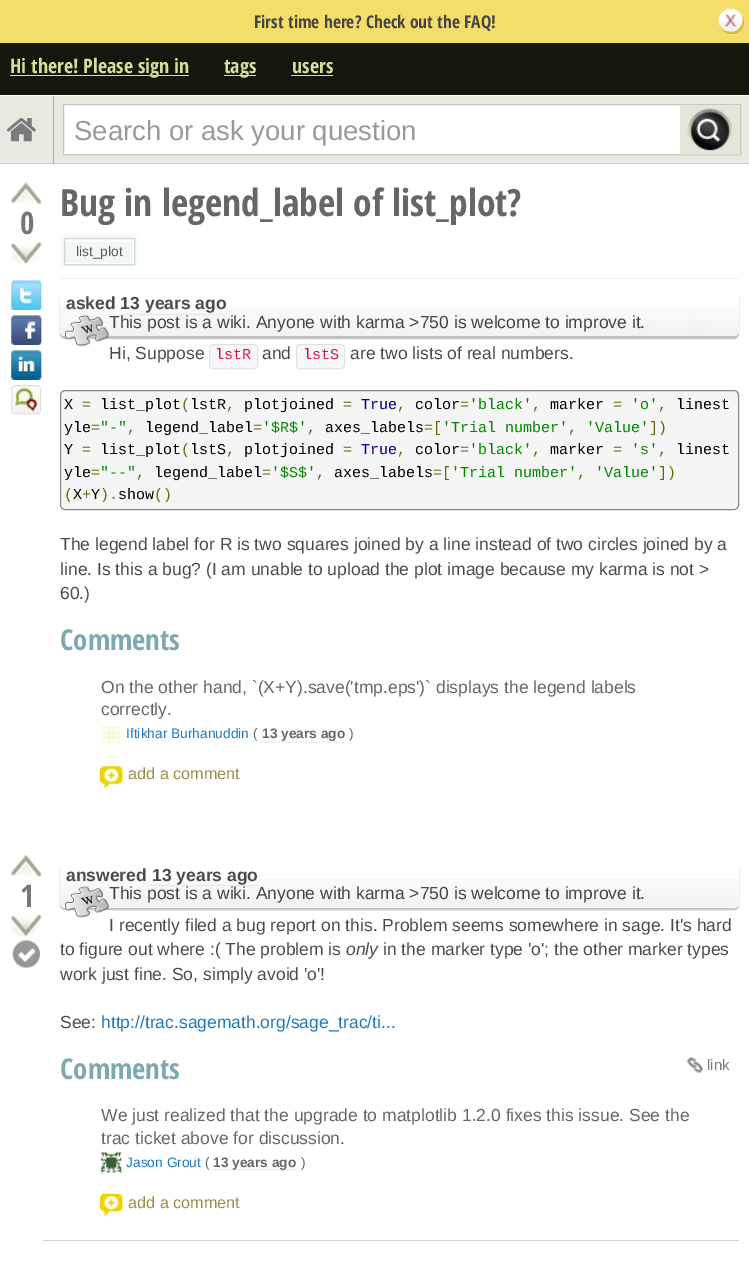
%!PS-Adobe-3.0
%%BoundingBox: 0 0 749 1261
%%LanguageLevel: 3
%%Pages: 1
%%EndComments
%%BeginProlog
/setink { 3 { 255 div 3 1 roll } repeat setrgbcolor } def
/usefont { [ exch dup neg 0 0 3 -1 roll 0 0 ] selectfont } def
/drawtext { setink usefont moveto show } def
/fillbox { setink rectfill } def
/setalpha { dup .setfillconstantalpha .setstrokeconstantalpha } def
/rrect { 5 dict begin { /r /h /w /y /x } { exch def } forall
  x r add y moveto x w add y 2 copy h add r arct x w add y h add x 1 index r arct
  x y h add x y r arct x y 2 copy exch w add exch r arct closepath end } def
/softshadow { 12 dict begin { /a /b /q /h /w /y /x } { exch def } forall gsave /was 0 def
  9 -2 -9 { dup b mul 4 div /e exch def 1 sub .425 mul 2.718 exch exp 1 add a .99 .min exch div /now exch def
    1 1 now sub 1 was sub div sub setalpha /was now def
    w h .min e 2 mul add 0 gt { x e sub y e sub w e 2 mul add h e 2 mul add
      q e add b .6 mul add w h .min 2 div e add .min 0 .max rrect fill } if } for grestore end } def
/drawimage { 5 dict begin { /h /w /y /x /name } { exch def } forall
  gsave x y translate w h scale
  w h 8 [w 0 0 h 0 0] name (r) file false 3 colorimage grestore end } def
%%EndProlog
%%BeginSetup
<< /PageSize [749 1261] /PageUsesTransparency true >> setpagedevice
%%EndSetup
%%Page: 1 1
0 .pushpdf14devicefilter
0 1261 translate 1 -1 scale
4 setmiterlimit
0 0 749 1261 255 255 255 fillbox
0 0 749 43 245 221 105 fillbox
(First time here? Check out the FAQ!) 254 28 /OpenSansCondensed-Bold 17.5 68 68 68 drawtext
(assets/img1.rgb) 718 8 26 26 drawimage
0 43 749 52 22 22 15 fillbox
10 75 179 1 208 226 150 fillbox
(Hi there! Please sign in) 10 73 /OpenSansCondensed-Bold 20 208 226 150 drawtext
224 75 32 1 208 226 150 fillbox
(tags) 224 73 /OpenSansCondensed-Bold 20 208 226 150 drawtext
(users) 292 73 /OpenSansCondensed-Bold 20 208 226 150 drawtext
291 75 42 1 208 226 150 fillbox
0 96 749 67 233 233 225 fillbox
0 95 749 1 252 252 252 fillbox
0 163 749 1 211 211 194 fillbox
53 96 1 68 175 175 158 fillbox
(assets/img2.rgb) 6 118 30 24 drawimage
255 255 255 setink
63.5 104.5 moveto 740.5 104.5 lineto 740.5 154.5 lineto 63.5 154.5 lineto closepath gsave fill grestore
201 201 181 setink
stroke
(Search or ask your question) 74 140 /LiberationSans-Regular 27.5 153 153 153 drawtext
(assets/img3.rgb) 680 105 60 50 drawimage
(assets/img4.rgb) 11 182 31 22 drawimage
(0) 20 234 /OpenSansCondensed-Bold 31 119 119 119 drawtext
(assets/img5.rgb) 11 242 31 22 drawimage
(assets/img6.rgb) 11 280 31 30 drawimage
(assets/img7.rgb) 11 315 31 30 drawimage
(assets/img8.rgb) 11 350 31 30 drawimage
(assets/img9.rgb) 11 385 31 30 drawimage
(Bug in legend_label of list_plot?) 60 216 /OpenSansCondensed-Bold 37.5 102 102 102 drawtext
211 214 215 setink
65 239 69 25 0 3 1 softshadow
66 242 67 21 243 246 246 fillbox
65 239 69 3 255 255 255 fillbox
133 239 1 25 255 255 255 fillbox
65 263 69 1 255 255 255 fillbox
207 219 219 setink
64.5 238.5 70 26 rectstroke
(list_plot) 76 256 /LiberationSans-Regular 13.75 88 88 88 drawtext
60 278 679 1 240 240 240 fillbox
191 191 191 setink
60 294 679 45 5 0.5 1 softshadow
255 255 255 setink
60 291 679 45 5 rrect fill
(assets/img10.rgb) 60 306 679 30 drawimage
(asked 13 years ago) 66 309 /LiberationSans-Bold 17.5 75 75 75 drawtext
221 221 221 setink
1.2 setlinewidth
[1.25 1.25] 0 setdash
121 314.5 moveto 226 314.5 lineto stroke
(assets/img11.rgb) 65 315 44 32 drawimage
(This post is a wiki. Anyone with karma >750 is welcome to improve it.) 109 328 /LiberationSans-Regular 17.5 68 68 68 drawtext
(Hi, Suppose) 109 359 /LiberationSans-Regular 17.5 75 75 75 drawtext
247 247 249 setink
209.5 344.5 48 24 3.5 rrect gsave fill grestore
225 225 232 setink
1 setlinewidth
[] 0 setdash
stroke
(lstR) 215 359 /LiberationMono-Regular 15 221 17 68 drawtext
(and) 262 359 /LiberationSans-Regular 17.5 75 75 75 drawtext
247 247 249 setink
296.5 344.5 48 24 3.5 rrect gsave fill grestore
225 225 232 setink
stroke
(lstS) 303 359 /LiberationMono-Regular 15 221 17 68 drawtext
(are two lists of real numbers.) 350 359 /LiberationSans-Regular 17.5 75 75 75 drawtext
245 245 245 setink
60.5 390.5 678 119 4.5 rrect gsave fill grestore
136 136 136 setink
stroke
(list_plot lstR) 100 409 /LiberationMono-Regular 15 0 0 0 drawtext
(X) 64 409 /LiberationMono-Regular 15 0 0 0 drawtext
(=) 82 409 /LiberationMono-Regular 15 102 102 0 drawtext
(\() 181 409 /LiberationMono-Regular 15 102 102 0 drawtext
(plotjoined) 244 409 /LiberationMono-Regular 15 0 0 0 drawtext
(=) 343 409 /LiberationMono-Regular 15 102 102 0 drawtext
(True) 361 409 /LiberationMono-Regular 15 0 0 136 drawtext
(color) 415 409 /LiberationMono-Regular 15 0 0 0 drawtext
(=) 460 409 /LiberationMono-Regular 15 102 102 0 drawtext
('black') 469 409 /LiberationMono-Regular 15 0 136 0 drawtext
(marker) 550 409 /LiberationMono-Regular 15 0 0 0 drawtext
(=) 613 409 /LiberationMono-Regular 15 102 102 0 drawtext
('o') 631 409 /LiberationMono-Regular 15 0 136 0 drawtext
(linest) 676 409 /LiberationMono-Regular 15 0 0 0 drawtext
(,) 226 409 /LiberationMono-Regular 15 102 102 0 drawtext
(,) 397 409 /LiberationMono-Regular 15 102 102 0 drawtext
(,) 532 409 /LiberationMono-Regular 15 102 102 0 drawtext
(,) 658 409 /LiberationMono-Regular 15 102 102 0 drawtext
(yle) 64 432 /LiberationMono-Regular 15 0 0 0 drawtext
(=) 91 432 /LiberationMono-Regular 15 102 102 0 drawtext
("-") 100 432 /LiberationMono-Regular 15 0 136 0 drawtext
(legend_label) 145 432 /LiberationMono-Regular 15 0 0 0 drawtext
(=) 253 432 /LiberationMono-Regular 15 102 102 0 drawtext
('$R$') 262 432 /LiberationMono-Regular 15 0 136 0 drawtext
(axes_labels) 325 432 /LiberationMono-Regular 15 0 0 0 drawtext
(=[) 424 432 /LiberationMono-Regular 15 102 102 0 drawtext
('Trial number') 442 432 /LiberationMono-Regular 15 0 136 0 drawtext
('Value') 586 432 /LiberationMono-Regular 15 0 136 0 drawtext
(]\)) 649 432 /LiberationMono-Regular 15 102 102 0 drawtext
(,) 127 432 /LiberationMono-Regular 15 102 102 0 drawtext
(,) 307 432 /LiberationMono-Regular 15 102 102 0 drawtext
(,) 568 432 /LiberationMono-Regular 15 102 102 0 drawtext
(list_plot lstS) 100 454 /LiberationMono-Regular 15 0 0 0 drawtext
(Y) 64 454 /LiberationMono-Regular 15 0 0 0 drawtext
(=) 82 454 /LiberationMono-Regular 15 102 102 0 drawtext
(\() 181 454 /LiberationMono-Regular 15 102 102 0 drawtext
(plotjoined) 244 454 /LiberationMono-Regular 15 0 0 0 drawtext
(=) 343 454 /LiberationMono-Regular 15 102 102 0 drawtext
(True) 361 454 /LiberationMono-Regular 15 0 0 136 drawtext
(color) 415 454 /LiberationMono-Regular 15 0 0 0 drawtext
(=) 460 454 /LiberationMono-Regular 15 102 102 0 drawtext
('black') 469 454 /LiberationMono-Regular 15 0 136 0 drawtext
(marker) 550 454 /LiberationMono-Regular 15 0 0 0 drawtext
(=) 613 454 /LiberationMono-Regular 15 102 102 0 drawtext
('s') 631 454 /LiberationMono-Regular 15 0 136 0 drawtext
(linest) 676 454 /LiberationMono-Regular 15 0 0 0 drawtext
(,) 226 454 /LiberationMono-Regular 15 102 102 0 drawtext
(,) 397 454 /LiberationMono-Regular 15 102 102 0 drawtext
(,) 532 454 /LiberationMono-Regular 15 102 102 0 drawtext
(,) 658 454 /LiberationMono-Regular 15 102 102 0 drawtext
(yle) 64 477 /LiberationMono-Regular 15 0 0 0 drawtext
(=) 91 477 /LiberationMono-Regular 15 102 102 0 drawtext
("--") 100 477 /LiberationMono-Regular 15 0 136 0 drawtext
(legend_label) 154 477 /LiberationMono-Regular 15 0 0 0 drawtext
(=) 262 477 /LiberationMono-Regular 15 102 102 0 drawtext
('$S$') 271 477 /LiberationMono-Regular 15 0 136 0 drawtext
(axes_labels) 334 477 /LiberationMono-Regular 15 0 0 0 drawtext
(=[) 433 477 /LiberationMono-Regular 15 102 102 0 drawtext
('Trial number') 451 477 /LiberationMono-Regular 15 0 136 0 drawtext
('Value') 595 477 /LiberationMono-Regular 15 0 136 0 drawtext
(]\)) 658 477 /LiberationMono-Regular 15 102 102 0 drawtext
(,) 136 477 /LiberationMono-Regular 15 102 102 0 drawtext
(,) 316 477 /LiberationMono-Regular 15 102 102 0 drawtext
(,) 577 477 /LiberationMono-Regular 15 102 102 0 drawtext
(\( + \).) 64 499 /LiberationMono-Regular 15 102 102 0 drawtext
(show) 118 499 /LiberationMono-Regular 15 0 0 0 drawtext
(\(\)) 154 499 /LiberationMono-Regular 15 102 102 0 drawtext
(X Y) 73 499 /LiberationMono-Regular 15 0 0 0 drawtext
(The legend label for R is two squares joined by a line instead of two circles joined by a) 60 550 /LiberationSans-Regular 17.5 75 75 75 drawtext
(line. Is this a bug? \(I am unable to upload the plot image because my karma is not >) 60 575 /LiberationSans-Regular 17.5 75 75 75 drawtext
(60.\)) 60 599 /LiberationSans-Regular 17.5 75 75 75 drawtext
(Comments) 60 650 /OpenSansCondensed-Bold 28.75 126 169 179 drawtext
(On the other hand, `\(X+Y\).save\('tmp.eps'\)` displays the legend labels) 101 693 /LiberationSans-Regular 17.5 102 102 102 drawtext
(correctly.) 101 715 /LiberationSans-Regular 17.5 102 102 102 drawtext
(assets/img12.rgb) 101 725 21 20 drawimage
(Iftikhar Burhanuddin) 126 738 /LiberationSans-Regular 13.75 27 121 189 drawtext
(\() 253 738 /LiberationSans-Regular 13.75 102 102 102 drawtext
(13 years ago) 262 738 /LiberationSans-Bold 13.75 102 102 102 drawtext
221 221 221 setink
1.2 setlinewidth
[1.25 1.25] 0 setdash
261 742 moveto 345 742 lineto stroke
(\)) 349 738 /LiberationSans-Regular 13.75 102 102 102 drawtext
(assets/img13.rgb) 100 766 23 23 drawimage
(add a comment) 128 779 /LiberationSans-Regular 16.25 152 142 76 drawtext
(assets/img14.rgb) 11 855 31 22 drawimage
(1) 20 907 /OpenSansCondensed-Bold 31 119 119 119 drawtext
(assets/img15.rgb) 11 915 31 22 drawimage
(assets/img16.rgb) 12 940 28 28 drawimage
43 1240 696 1 212 212 212 fillbox
191 191 191 setink
60 865 679 45 5 0.5 1 softshadow
255 255 255 setink
60 863 679 45 5 rrect fill
(assets/img17.rgb) 60 878 679 29 drawimage
(answered) 66 881 /LiberationSans-Bold 17.5 75 75 75 drawtext
221 221 221 setink
151 885.5 moveto 257.5 885.5 lineto stroke
(13 years ago) 152 881 /LiberationSans-Bold 17.5 75 75 75 drawtext
(assets/img18.rgb) 65 886 44 32 drawimage
(This post is a wiki. Anyone with karma >750 is welcome to improve it.) 109 899 /LiberationSans-Regular 17.5 68 68 68 drawtext
(I recently filed a bug report on this. Problem seems somewhere in sage. It's hard) 109 931 /LiberationSans-Regular 17.5 75 75 75 drawtext
(to figure out where :\( The problem is) 60 955 /LiberationSans-Regular 17.5 75 75 75 drawtext
(only) 346 955 /LiberationSans-Italic 17.5 75 75 75 drawtext
(in the marker type 'o'; the other marker types) 383 955 /LiberationSans-Regular 17.5 75 75 75 drawtext
(work just fine. So, simply avoid 'o'!) 60 980 /LiberationSans-Regular 17.5 75 75 75 drawtext
(See:) 60 1028 /LiberationSans-Regular 17.5 75 75 75 drawtext
(http://trac.sagemath.org/sage_trac/ti...) 101 1028 /LiberationSans-Regular 17.5 27 121 189 drawtext
(Comments) 60 1079 /OpenSansCondensed-Bold 28.75 126 169 179 drawtext
(assets/img19.rgb) 687 1057 16 16 drawimage
(link) 707 1070 /LiberationSans-Regular 15 119 119 119 drawtext
(We just realized that the upgrade to matplotlib 1.2.0 fixes this issue. See the) 101 1121 /LiberationSans-Regular 17.5 102 102 102 drawtext
(trac ticket above for discussion.) 101 1144 /LiberationSans-Regular 17.5 102 102 102 drawtext
(assets/img20.rgb) 101 1152 21 21 drawimage
(Jason Grout) 126 1167 /LiberationSans-Regular 13.75 27 121 189 drawtext
(\() 205 1167 /LiberationSans-Regular 13.75 102 102 102 drawtext
221 221 221 setink
214 1169.5 moveto 296 1169.5 lineto stroke
(13 years ago) 213 1167 /LiberationSans-Bold 13.75 102 102 102 drawtext
(\)) 301 1167 /LiberationSans-Regular 13.75 102 102 102 drawtext
(assets/img21.rgb) 100 1193 23 24 drawimage
(add a comment) 128 1208 /LiberationSans-Regular 16.25 152 142 76 drawtext
.poppdf14devicefilter showpage
%%EOF
